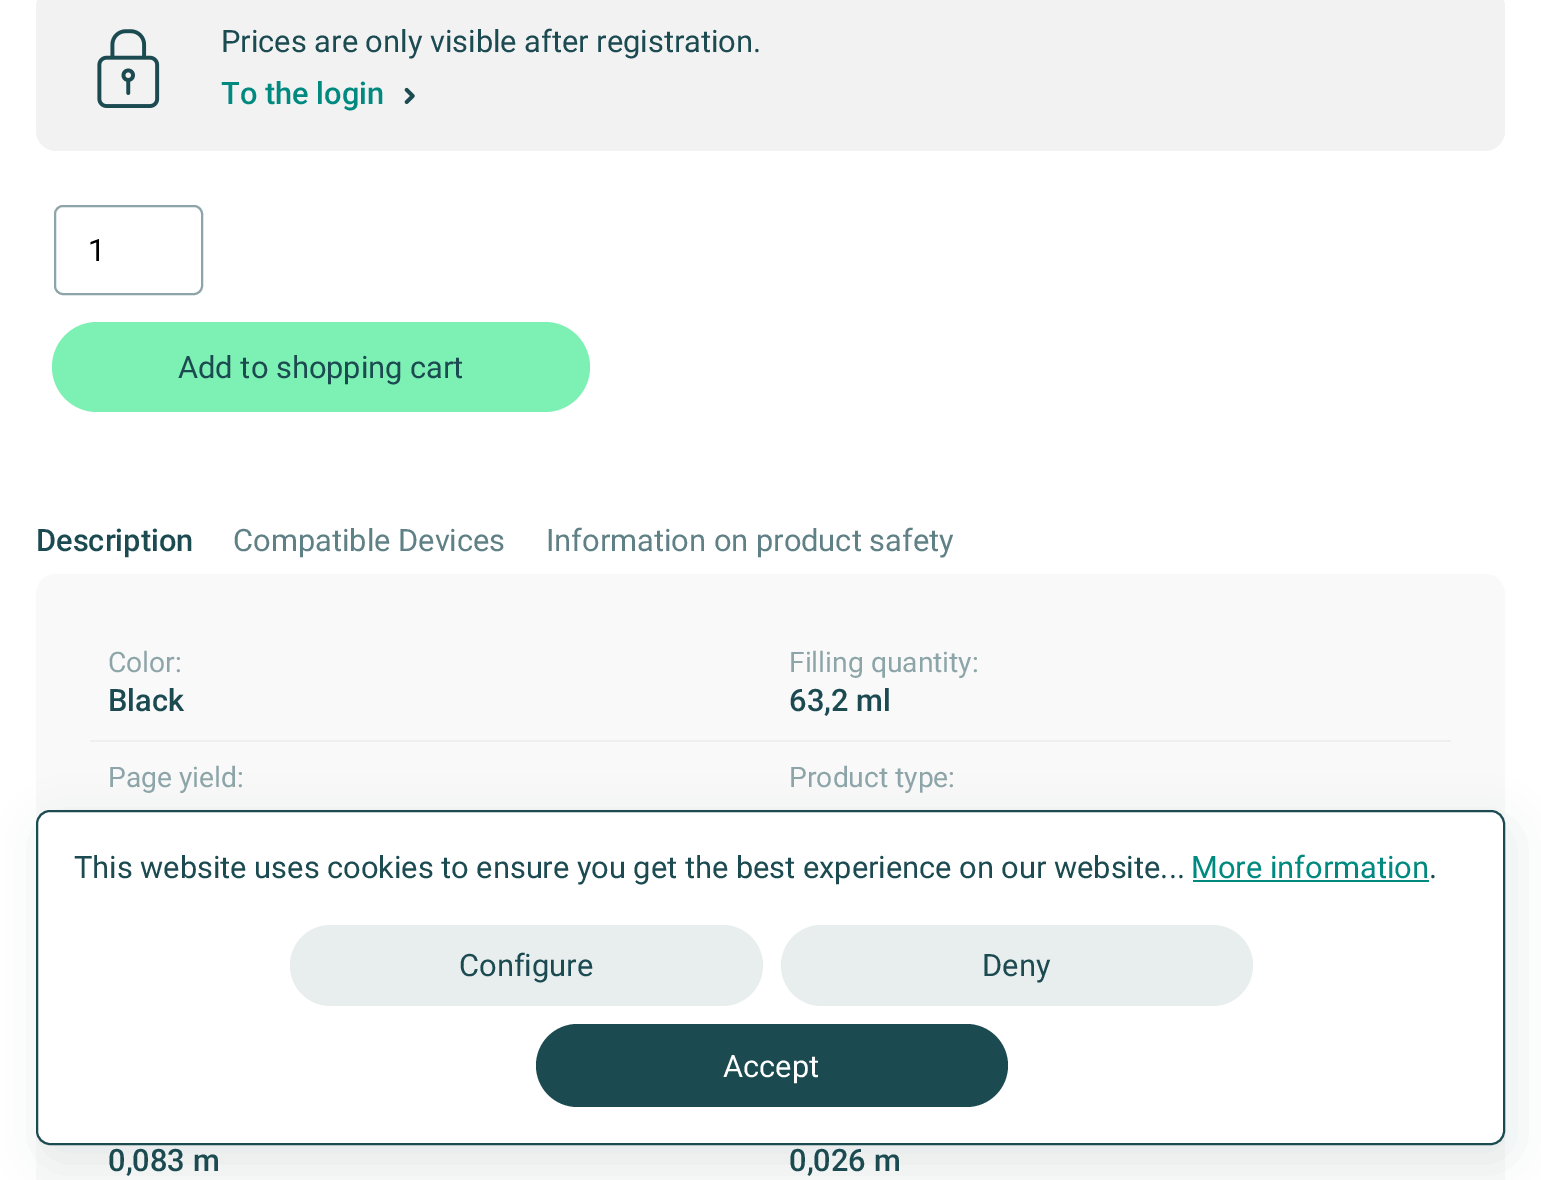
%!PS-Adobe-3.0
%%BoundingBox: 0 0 1541 1180
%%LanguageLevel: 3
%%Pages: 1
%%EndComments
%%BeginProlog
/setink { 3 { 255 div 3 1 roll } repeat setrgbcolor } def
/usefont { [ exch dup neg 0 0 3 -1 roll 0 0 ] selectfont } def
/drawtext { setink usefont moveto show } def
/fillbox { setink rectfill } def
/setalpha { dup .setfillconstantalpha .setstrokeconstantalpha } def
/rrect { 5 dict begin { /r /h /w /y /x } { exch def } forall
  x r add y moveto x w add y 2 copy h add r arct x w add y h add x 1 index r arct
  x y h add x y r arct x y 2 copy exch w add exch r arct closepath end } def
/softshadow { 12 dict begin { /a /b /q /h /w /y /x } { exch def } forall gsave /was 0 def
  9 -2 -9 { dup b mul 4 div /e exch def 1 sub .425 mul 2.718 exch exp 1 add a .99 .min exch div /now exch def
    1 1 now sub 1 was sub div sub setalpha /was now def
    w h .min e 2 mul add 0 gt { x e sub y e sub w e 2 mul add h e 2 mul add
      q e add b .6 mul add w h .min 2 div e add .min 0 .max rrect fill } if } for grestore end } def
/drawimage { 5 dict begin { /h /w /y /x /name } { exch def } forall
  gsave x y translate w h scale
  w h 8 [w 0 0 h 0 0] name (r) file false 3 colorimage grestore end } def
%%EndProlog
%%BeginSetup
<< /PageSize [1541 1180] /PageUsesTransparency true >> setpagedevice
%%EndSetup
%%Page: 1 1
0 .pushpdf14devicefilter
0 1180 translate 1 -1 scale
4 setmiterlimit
0 0 1541 1180 255 255 255 fillbox
242 242 242 setink
36 -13 1469 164 20 rrect fill
(assets/img1.rgb) 97 29 63 79 drawimage
(Prices are only visible after registration.) 221 52 /Roboto-Regular 30.8 27 74 81 drawtext
(To the login) 221 104 /Roboto-Medium 30.8 0 137 127 drawtext
(assets/img2.rgb) 404 87 11 17 drawimage
141 165 168 setink
2 setlinewidth
55 206 147 88 8 rrect stroke
(1) 88 261 /Roboto-Regular 30.8 0 0 0 drawtext
125 240 180 setink
52 322 538 90 45 rrect fill
(Add to shopping cart) 178 378 /Roboto-Regular 30.8 27 74 81 drawtext
(Description) 36 551 /Roboto-Medium 30.8 27 74 81 drawtext
(Compatible Devices) 233 551 /Roboto-Regular 30.8 95 128 133 drawtext
(Information on product safety) 546 551 /Roboto-Regular 30.8 95 128 133 drawtext
249 249 249 setink
36 574 1469 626 20 rrect fill
90 740 1361 2 239 239 239 fillbox
(Color:) 108 672 /Roboto-Regular 28.25 141 165 168 drawtext
(Black) 108 711 /Roboto-Medium 30.8 27 74 81 drawtext
(Filling quantity:) 789 672 /Roboto-Regular 28.25 141 165 168 drawtext
(63,2 ml) 789 711 /Roboto-Medium 30.8 27 74 81 drawtext
(Page yield:) 108 787 /Roboto-Regular 28.25 141 165 168 drawtext
(Product type:) 789 787 /Roboto-Regular 28.25 141 165 168 drawtext
(0,083 m) 108 1171 /Roboto-Medium 30.8 27 74 81 drawtext
(0,026 m) 789 1171 /Roboto-Medium 30.8 27 74 81 drawtext
43 824 1469 335 14 22.5 0.1 softshadow
255 255 255 setink
37 811 1467 333 13 rrect gsave fill grestore
27 74 81 setink
stroke
/Roboto-Regular 30.8 usefont
74 878 moveto -0.1 0 32 (This website uses cookies to ensure you get the best experience on our website...) widthshow
(More information) 1191 878 /Roboto-Regular 30.8 0 137 127 drawtext
1193 880 236 2 0 137 127 fillbox
(.) 1429 878 /Roboto-Regular 30.8 27 74 81 drawtext
232 237 238 setink
290 925 473 81 40.5 rrect fill
(Configure) 459 976 /Roboto-Regular 30.8 27 74 81 drawtext
232 237 238 setink
781 925 472 81 40.5 rrect fill
(Deny) 982 976 /Roboto-Regular 30.8 27 74 81 drawtext
536 1024 472 83 41.5 rrect fill
(Accept) 723 1077 /Roboto-Regular 30.8 255 255 255 drawtext
.poppdf14devicefilter showpage
%%EOF
